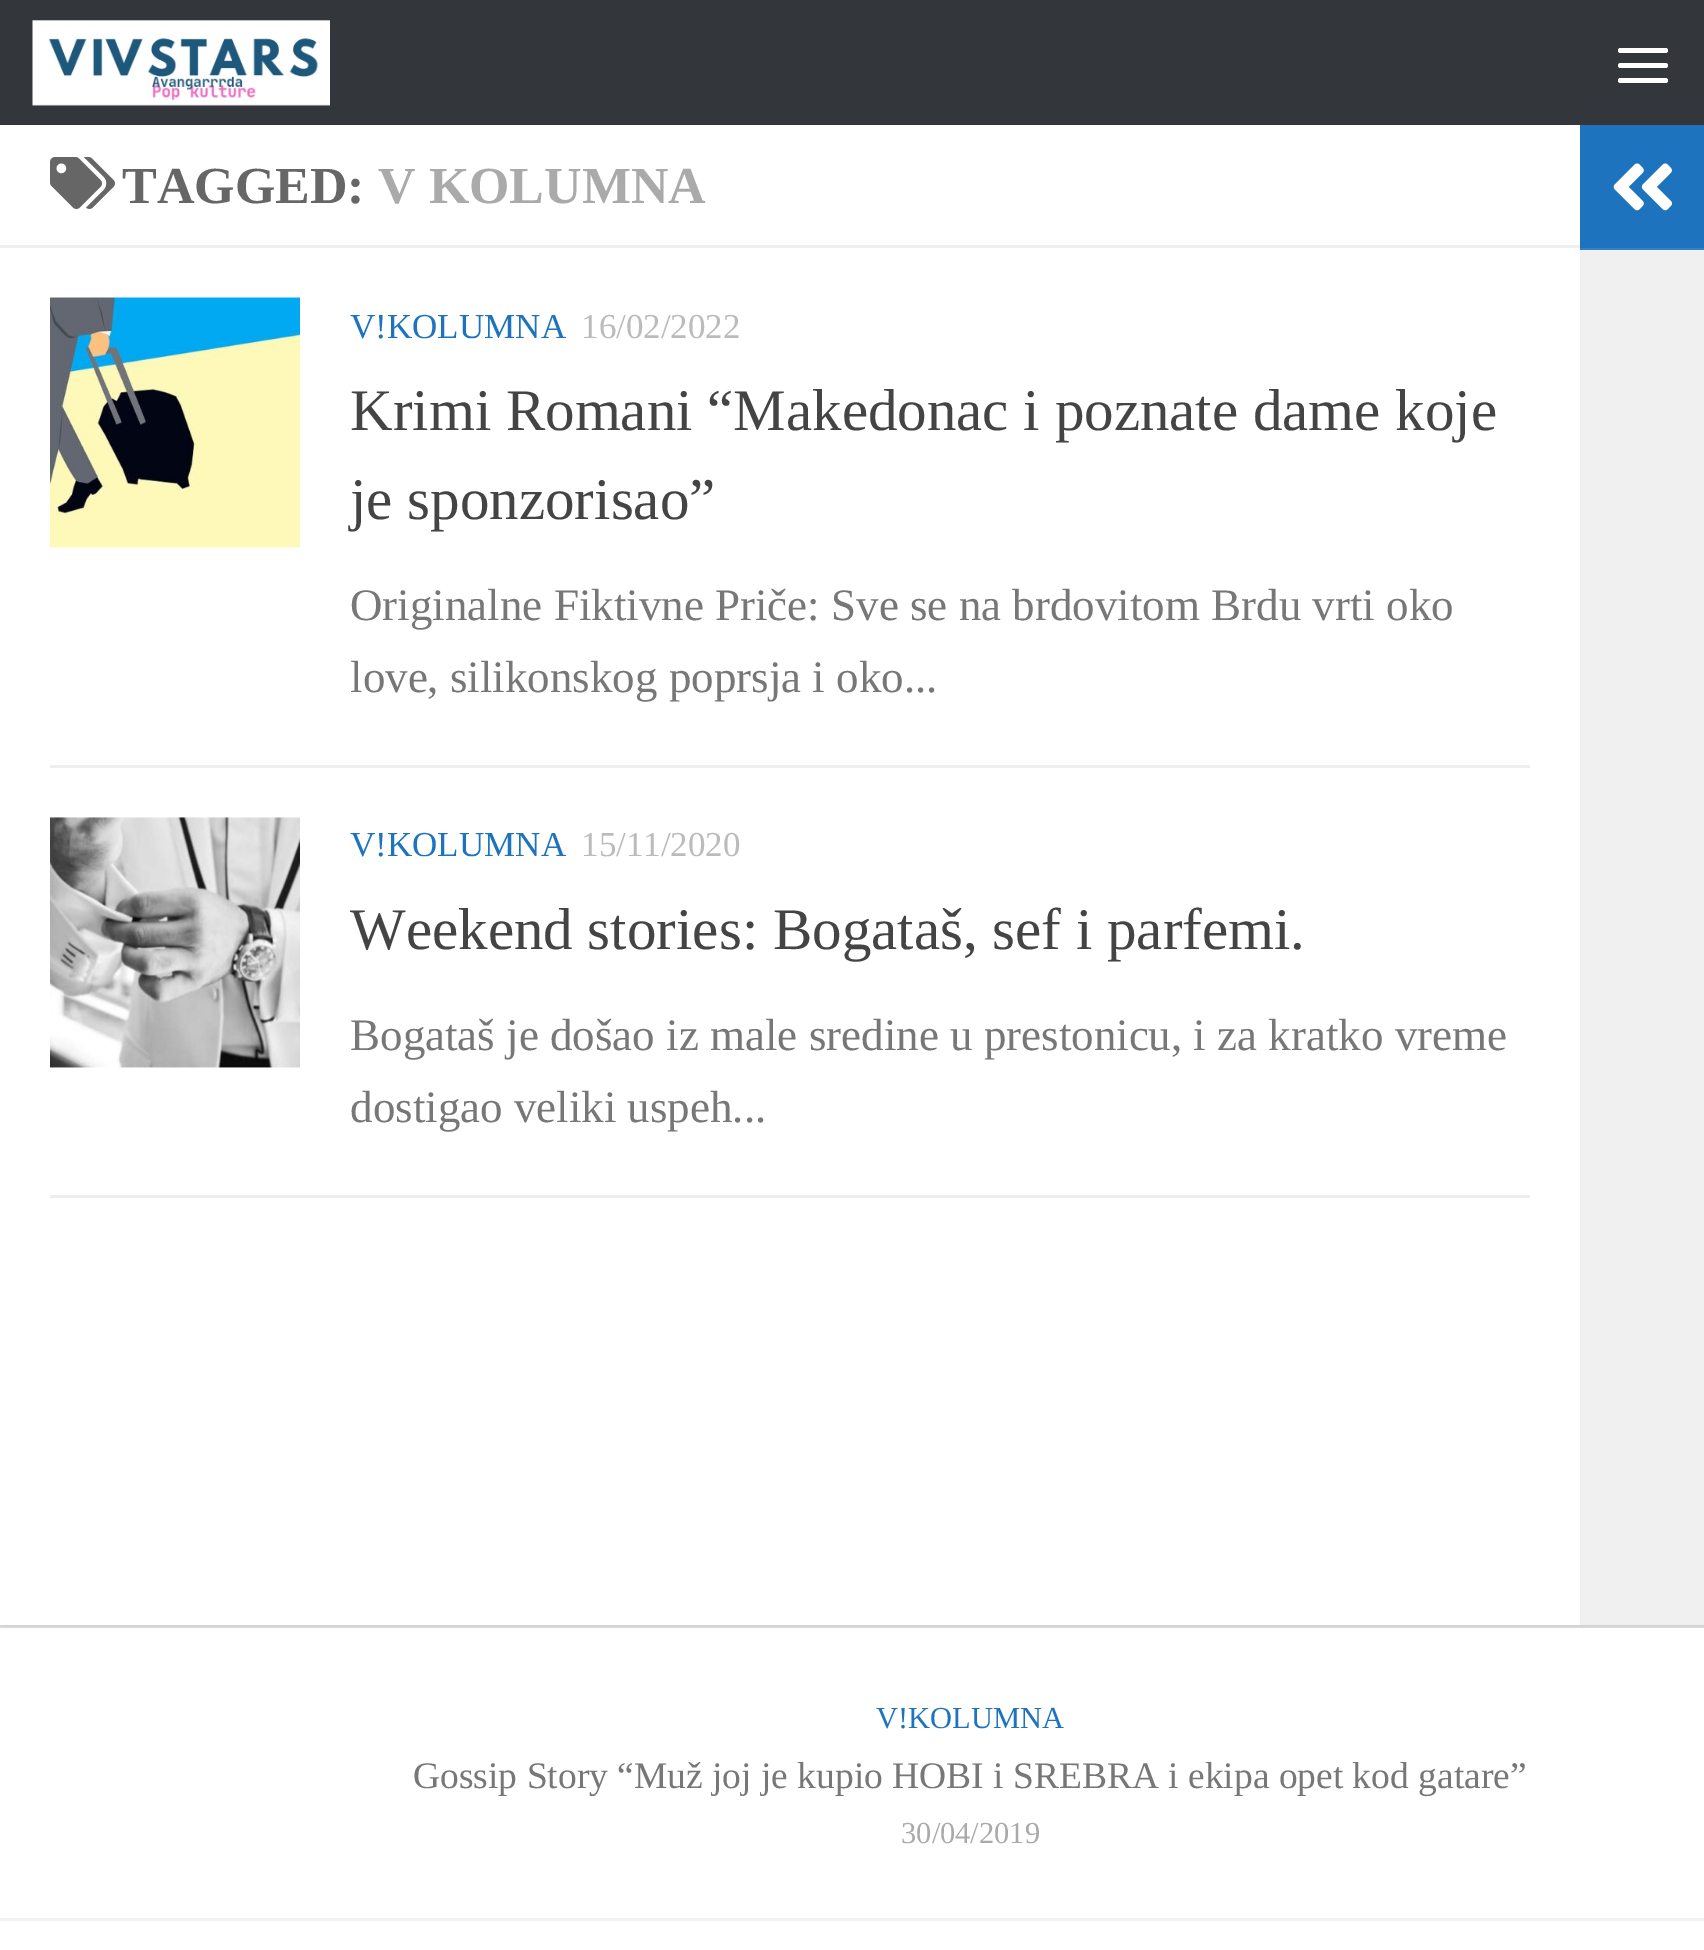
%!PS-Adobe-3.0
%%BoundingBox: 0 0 1704 1950
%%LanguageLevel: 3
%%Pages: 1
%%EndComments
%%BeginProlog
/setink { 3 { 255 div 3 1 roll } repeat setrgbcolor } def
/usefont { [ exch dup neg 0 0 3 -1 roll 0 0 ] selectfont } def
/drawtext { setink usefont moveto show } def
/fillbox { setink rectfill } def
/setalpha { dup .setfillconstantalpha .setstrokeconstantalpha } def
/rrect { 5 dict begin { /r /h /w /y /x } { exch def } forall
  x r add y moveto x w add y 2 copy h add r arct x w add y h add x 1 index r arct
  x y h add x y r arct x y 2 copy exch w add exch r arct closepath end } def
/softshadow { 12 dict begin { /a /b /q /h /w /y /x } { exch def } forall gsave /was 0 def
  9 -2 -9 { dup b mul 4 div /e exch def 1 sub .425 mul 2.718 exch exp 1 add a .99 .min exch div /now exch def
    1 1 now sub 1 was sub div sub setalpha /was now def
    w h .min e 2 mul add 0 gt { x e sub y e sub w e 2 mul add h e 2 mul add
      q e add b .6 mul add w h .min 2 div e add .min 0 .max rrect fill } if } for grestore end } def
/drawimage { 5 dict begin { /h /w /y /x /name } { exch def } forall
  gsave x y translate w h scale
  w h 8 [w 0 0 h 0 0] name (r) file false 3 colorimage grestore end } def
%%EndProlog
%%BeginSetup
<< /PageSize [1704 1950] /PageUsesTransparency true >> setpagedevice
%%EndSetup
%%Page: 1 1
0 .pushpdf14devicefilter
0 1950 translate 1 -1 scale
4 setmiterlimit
0 0 1704 1950 234 234 234 fillbox
0 0 0 setink
0 128 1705 1500 0 1 0.1 softshadow
0 0 1704 125 51 54 59 fillbox
(assets/img1.rgb) 32 20 298 86 drawimage
255 255 255 setink
1618 48 50 5 2.5 rrect fill
1618 63 50 5 2.5 rrect fill
1618 78 50 5 2.5 rrect fill
0 125 1580 1500 255 255 255 fillbox
0 245 1580 3 238 238 238 fillbox
(assets/img2.rgb) 50 157 65 52 drawimage
(TAGGED:) 122 203 /LiberationSerif-Bold 52 102 102 102 drawtext
(V KOLUMNA) 378 203 /LiberationSerif-Bold 52 170 170 170 drawtext
50 765 1480 3 238 238 238 fillbox
(assets/img3.rgb) 50 297 250 251 drawimage
(V!KOLUMNA) 350 338 /LiberationSerif-Regular 35 30 115 190 drawtext
(16/02/2022) 581 338 /LiberationSerif-Regular 35 187 187 187 drawtext
(Krimi Romani “Makedonac i poznate dame koje) 350 430 /LiberationSerif-Regular 59 68 68 68 drawtext
(je sponzorisao”) 350 519 /LiberationSerif-Regular 59 68 68 68 drawtext
(Originalne Fiktivne Priče: Sve se na brdovitom Brdu vrti oko) 350 620 /LiberationSerif-Regular 45 119 119 119 drawtext
(love, silikonskog poprsja i oko...) 350 692 /LiberationSerif-Regular 45 119 119 119 drawtext
50 1195 1480 3 238 238 238 fillbox
(assets/img4.rgb) 50 817 250 251 drawimage
(V!KOLUMNA) 350 856 /LiberationSerif-Regular 35 30 115 190 drawtext
(15/11/2020) 581 856 /LiberationSerif-Regular 35 187 187 187 drawtext
(Weekend stories: Bogataš, sef i parfemi.) 350 949 /LiberationSerif-Regular 59 68 68 68 drawtext
(Bogataš je došao iz male sredine u prestonicu, i za kratko vreme) 350 1050 /LiberationSerif-Regular 45 119 119 119 drawtext
(dostigao veliki uspeh...) 350 1122 /LiberationSerif-Regular 45 119 119 119 drawtext
1580 125 124 123 30 115 190 fillbox
1580 248 124 2 53 129 197 fillbox
(assets/img5.rgb) 1613 163 59 48 drawimage
1580 251 124 1374 240 240 240 fillbox
1580 250 124 1 242 242 242 fillbox
0 1628 1704 322 255 255 255 fillbox
0 1918 1704 3 242 242 242 fillbox
(V!KOLUMNA) 876 1728 /LiberationSerif-Regular 30.5 30 115 190 drawtext
(Gossip Story “Muž joj je kupio HOBI i SREBRA i ekipa opet kod gatare”) 413 1788 /LiberationSerif-Regular 37.5 119 119 119 drawtext
(30/04/2019) 901 1843 /LiberationSerif-Regular 30.5 170 170 170 drawtext
.poppdf14devicefilter showpage
%%EOF
